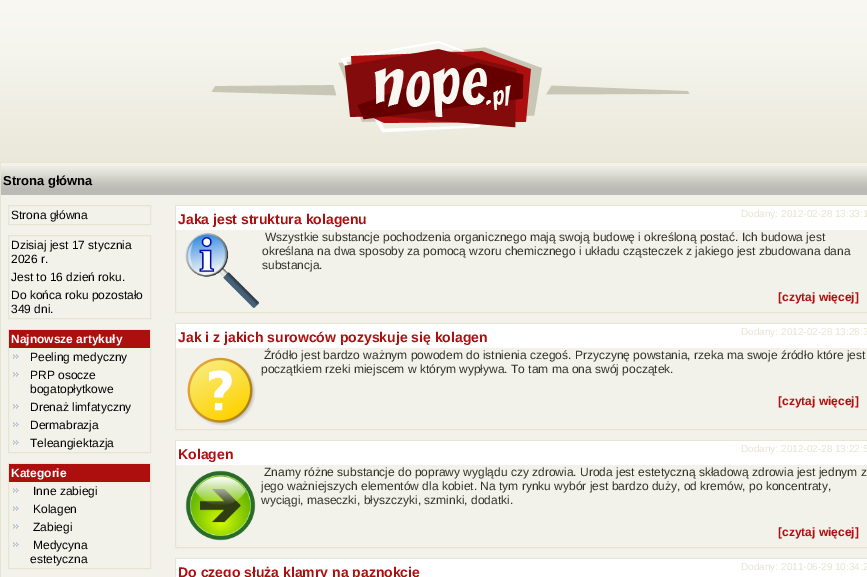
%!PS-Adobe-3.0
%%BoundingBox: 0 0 867 577
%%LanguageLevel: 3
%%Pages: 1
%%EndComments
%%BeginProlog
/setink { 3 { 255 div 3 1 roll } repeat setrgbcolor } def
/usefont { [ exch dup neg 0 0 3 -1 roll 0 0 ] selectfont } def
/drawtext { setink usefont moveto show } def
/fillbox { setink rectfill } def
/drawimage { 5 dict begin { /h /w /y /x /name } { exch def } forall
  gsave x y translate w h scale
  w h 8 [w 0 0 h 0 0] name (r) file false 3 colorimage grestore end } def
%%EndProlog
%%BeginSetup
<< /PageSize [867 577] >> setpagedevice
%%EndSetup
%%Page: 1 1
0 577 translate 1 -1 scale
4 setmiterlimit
0 0 867 577 230 228 211 fillbox
(assets/img1.rgb) 0 0 867 162 drawimage
(assets/img2.rgb) 211 41 479 92 drawimage
1 163 866 414 243 242 234 fillbox
(assets/img3.rgb) 1 166 866 29 drawimage
(Strona główna) 3 185 /LiberationSans-Bold 13 0 0 0 drawtext
230 228 211 setink
8.5 205.5 142 19 rectstroke
(Strona główna) 11 219 /LiberationSans-Regular 12 0 0 0 drawtext
230 228 211 setink
8.5 235.5 142 83 rectstroke
(Dzisiaj jest 17 stycznia) 11 249 /LiberationSans-Regular 12 0 0 0 drawtext
(2026 r.) 11 263 /LiberationSans-Regular 12 0 0 0 drawtext
(Jest to 16 dzień roku.) 11 281 /LiberationSans-Regular 12 0 0 0 drawtext
(Do końca roku pozostało) 11 299 /LiberationSans-Regular 12 0 0 0 drawtext
(349 dni.) 11 313 /LiberationSans-Regular 12 0 0 0 drawtext
230 228 211 setink
8.5 329.5 142 123 rectstroke
9 330 141 18 173 14 14 fillbox
(Najnowsze artykuły) 11 343 /LiberationSans-Bold 12 255 255 255 drawtext
(assets/img4.rgb) 13 354 6 5 drawimage
(Peeling medyczny) 30 361 /LiberationSans-Regular 12 0 0 0 drawtext
(assets/img4.rgb) 13 372 6 5 drawimage
(PRP osocze) 30 379 /LiberationSans-Regular 12 0 0 0 drawtext
(bogatopłytkowe) 30 393 /LiberationSans-Regular 12 0 0 0 drawtext
(assets/img4.rgb) 13 404 6 5 drawimage
(Drenaż limfatyczny) 30 411 /LiberationSans-Regular 12 0 0 0 drawtext
(assets/img4.rgb) 13 422 6 5 drawimage
(Dermabrazja) 30 429 /LiberationSans-Regular 12 0 0 0 drawtext
(assets/img4.rgb) 13 440 6 5 drawimage
(Teleangiektazja) 30 447 /LiberationSans-Regular 12 0 0 0 drawtext
230 228 211 setink
8.5 463.5 142 105 rectstroke
9 464 141 18 173 14 14 fillbox
(Kategorie) 11 477 /LiberationSans-Bold 12 255 255 255 drawtext
(assets/img4.rgb) 13 488 6 5 drawimage
(Inne zabiegi) 33 495 /LiberationSans-Regular 12 0 0 0 drawtext
(assets/img4.rgb) 13 506 6 5 drawimage
(Kolagen) 33 513 /LiberationSans-Regular 12 0 0 0 drawtext
(assets/img4.rgb) 13 524 6 5 drawimage
(Zabiegi) 33 531 /LiberationSans-Regular 12 0 0 0 drawtext
(assets/img4.rgb) 13 542 6 5 drawimage
(Medycyna) 33 549 /LiberationSans-Regular 12 0 0 0 drawtext
(estetyczna) 30 563 /LiberationSans-Regular 12 0 0 0 drawtext
230 228 211 setink
175.5 205.5 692 107 rectstroke
176 206 691 24 255 255 255 fillbox
(Jaka jest struktura kolagenu) 178 224 /LiberationSans-Bold 14 173 14 14 drawtext
(Dodany: 2012-02-28 13:33:1) 741 217 /LiberationSans-Regular 10 230 228 211 drawtext
(assets/img5.rgb) 185 233 74 75 drawimage
(Wszystkie substancje pochodzenia organicznego mają swoją budowę i określoną postać. Ich budowa jest) 265 241 /LiberationSans-Regular 12 49 49 44 drawtext
(określana na dwa sposoby za pomocą wzoru chemicznego i układu cząsteczek z jakiego jest zbudowana dana) 262 255 /LiberationSans-Regular 12 49 49 44 drawtext
(substancja.) 262 269 /LiberationSans-Regular 12 49 49 44 drawtext
([czytaj więcej]) 778 301 /LiberationSans-Bold 12 173 14 14 drawtext
230 228 211 setink
175.5 323.5 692 106 rectstroke
176 324 691 24 255 255 255 fillbox
(Jak i z jakich surowców pozyskuje się kolagen) 178 342 /LiberationSans-Bold 14 173 14 14 drawtext
(Dodany: 2012-02-28 13:28:3) 741 335 /LiberationSans-Regular 10 230 228 211 drawtext
(Źródło jest bardzo ważnym powodem do istnienia czegoś. Przyczynę powstania, rzeka ma swoje źródło które jest) 264 359 /LiberationSans-Regular 12 49 49 44 drawtext
(assets/img6.rgb) 187 357 69 69 drawimage
(początkiem rzeki miejscem w którym wypływa. To tam ma ona swój początek.) 261 373 /LiberationSans-Regular 12 49 49 44 drawtext
([czytaj więcej]) 778 405 /LiberationSans-Bold 12 173 14 14 drawtext
230 228 211 setink
175.5 440.5 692 107 rectstroke
176 441 691 24 255 255 255 fillbox
(Kolagen) 178 459 /LiberationSans-Bold 14 173 14 14 drawtext
(Dodany: 2012-02-28 13:22:5) 741 452 /LiberationSans-Regular 10 230 228 211 drawtext
(assets/img7.rgb) 185 470 71 71 drawimage
(Znamy różne substancje do poprawy wyglądu czy zdrowia. Uroda jest estetyczną składową zdrowia jest jednym z) 264 476 /LiberationSans-Regular 12 49 49 44 drawtext
(jego ważniejszych elementów dla kobiet. Na tym rynku wybór jest bardzo duży, od kremów, po koncentraty,) 261 490 /LiberationSans-Regular 12 49 49 44 drawtext
(wyciągi, maseczki, błyszczyki, szminki, dodatki.) 261 504 /LiberationSans-Regular 12 49 49 44 drawtext
([czytaj więcej]) 778 536 /LiberationSans-Bold 12 173 14 14 drawtext
230 228 211 setink
175.5 558.5 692 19 rectstroke
176 559 691 18 255 255 255 fillbox
(Do czego służą klamry na paznokcie) 178 577 /LiberationSans-Bold 14 173 14 14 drawtext
(Dodany: 2011-06-29 10:34:2) 741 570 /LiberationSans-Regular 10 230 228 211 drawtext
showpage
%%EOF
